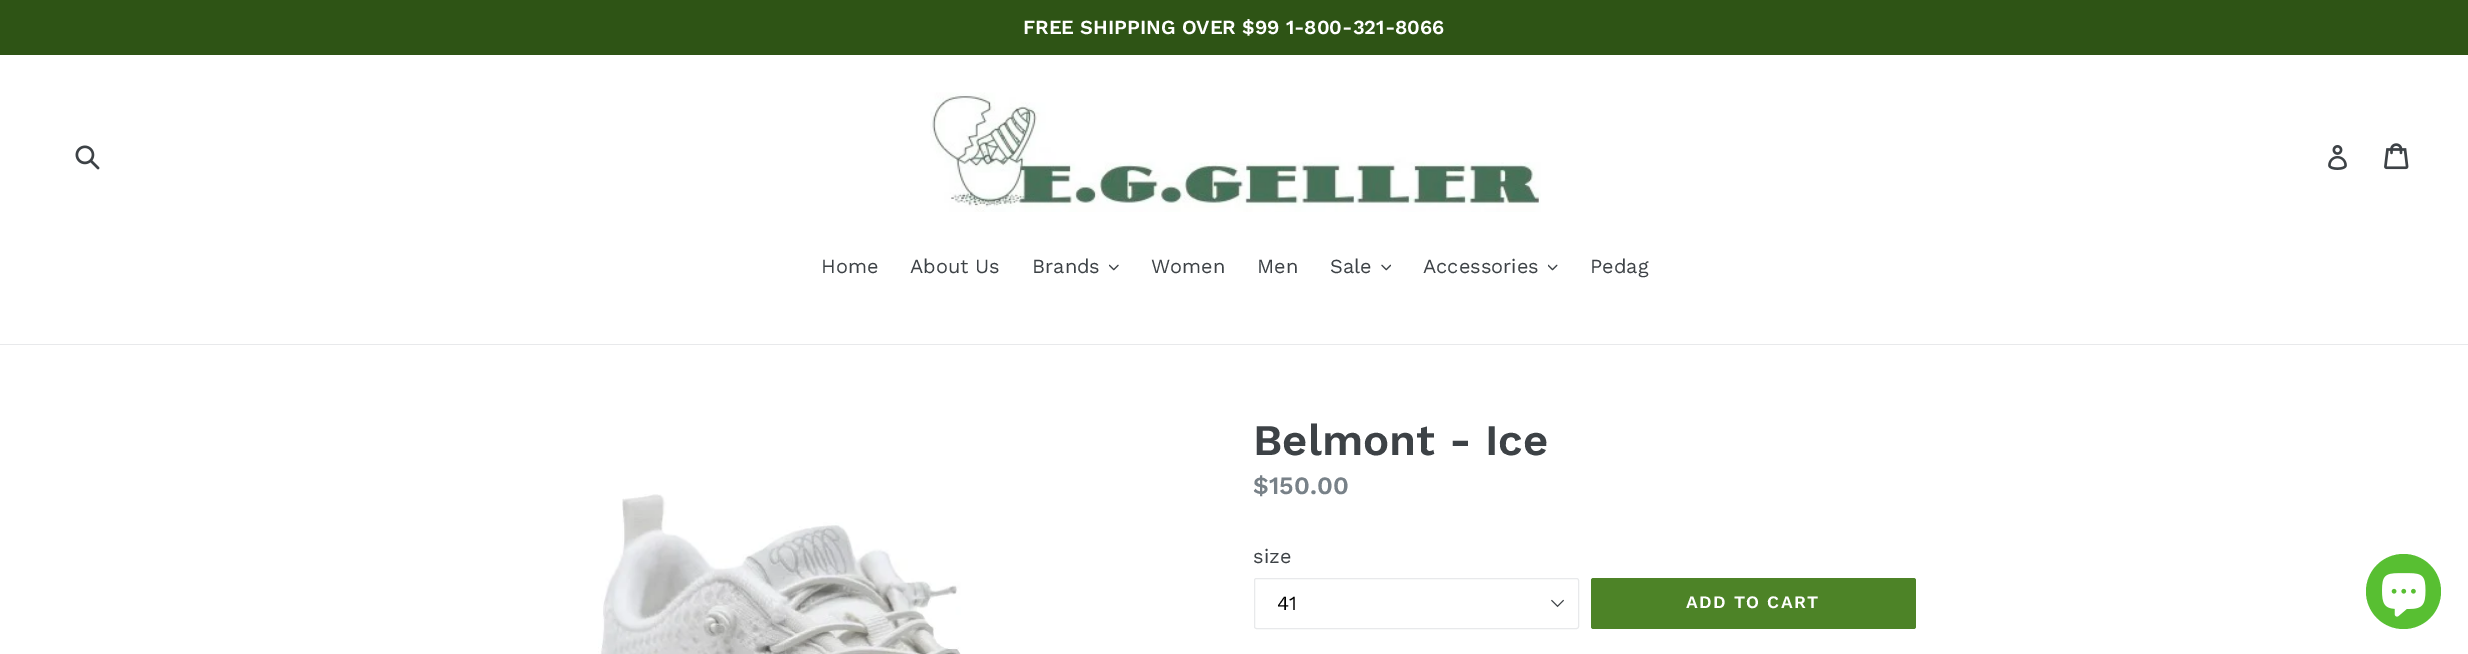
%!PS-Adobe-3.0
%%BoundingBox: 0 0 2468 654
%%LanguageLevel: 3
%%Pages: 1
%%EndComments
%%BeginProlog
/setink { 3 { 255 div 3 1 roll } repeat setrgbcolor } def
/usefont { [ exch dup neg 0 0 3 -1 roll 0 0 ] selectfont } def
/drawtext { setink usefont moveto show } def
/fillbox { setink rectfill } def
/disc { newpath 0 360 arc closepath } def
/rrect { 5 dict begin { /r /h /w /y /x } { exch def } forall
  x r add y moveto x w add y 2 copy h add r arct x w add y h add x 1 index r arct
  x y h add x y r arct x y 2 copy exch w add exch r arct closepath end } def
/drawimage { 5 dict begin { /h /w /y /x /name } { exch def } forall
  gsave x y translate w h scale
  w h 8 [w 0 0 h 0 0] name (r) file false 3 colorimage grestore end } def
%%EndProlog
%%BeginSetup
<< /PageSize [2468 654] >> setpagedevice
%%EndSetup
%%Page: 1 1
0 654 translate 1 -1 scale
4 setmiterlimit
0 0 2468 654 255 255 255 fillbox
0 0 2468 55 46 84 21 fillbox
(FREE SHIPPING OVER $99 1-800-321-8066) 1023 34 /WorkSans-SemiBold 20 255 255 255 drawtext
(assets/img1.rgb) 75 145 25 25 drawimage
(assets/img2.rgb) 930 92 611 120 drawimage
(assets/img3.rgb) 2328 145 19 25 drawimage
(assets/img4.rgb) 2384 143 25 27 drawimage
0 344 2468 1 232 233 235 fillbox
(Home) 821 273 /WorkSans-Regular 20 61 66 70 drawtext
(About Us) 910 273 /WorkSans-Regular 20 61 66 70 drawtext
(Brands) 1032 273 /WorkSans-Regular 20 61 66 70 drawtext
(assets/img5.rgb) 1109 264 10 7 drawimage
(Women) 1151 273 /WorkSans-Regular 20 61 66 70 drawtext
(Men) 1257 273 /WorkSans-Regular 20 61 66 70 drawtext
(Sale) 1330 273 /WorkSans-Regular 20 61 66 70 drawtext
(assets/img6.rgb) 1381 264 10 7 drawimage
(Accessories) 1423 273 /WorkSans-Regular 20 61 66 70 drawtext
(assets/img7.rgb) 1548 264 10 7 drawimage
(Pedag) 1590 273 /WorkSans-Regular 20 61 66 70 drawtext
(assets/img8.rgb) 598 494 363 160 drawimage
(Belmont - Ice) 1253 455 /WorkSans-SemiBold 43.75 61 66 70 drawtext
($150.00) 1253 494 /WorkSans-SemiBold 25 120 129 136 drawtext
(size) 1253 563 /WorkSans-Regular 20 61 66 70 drawtext
(assets/img9.rgb) 1551 599 13 9 drawimage
232 233 235 setink
1254.5 578.5 324 50 2 rrect stroke
(41) 1277 610 /WorkSans-Regular 20 0 0 0 drawtext
77 131 39 setink
1591 578 325 51 2.5 rrect fill
/WorkSans-SemiBold 17.5 usefont
255 255 255 setink
1686 608 moveto 1.4 0 (ADD TO CART) ashow
88 191 50 setink
2403.5 591.5 37.5 disc fill
(assets/img10.rgb) 2382 573 44 44 drawimage
showpage
%%EOF
